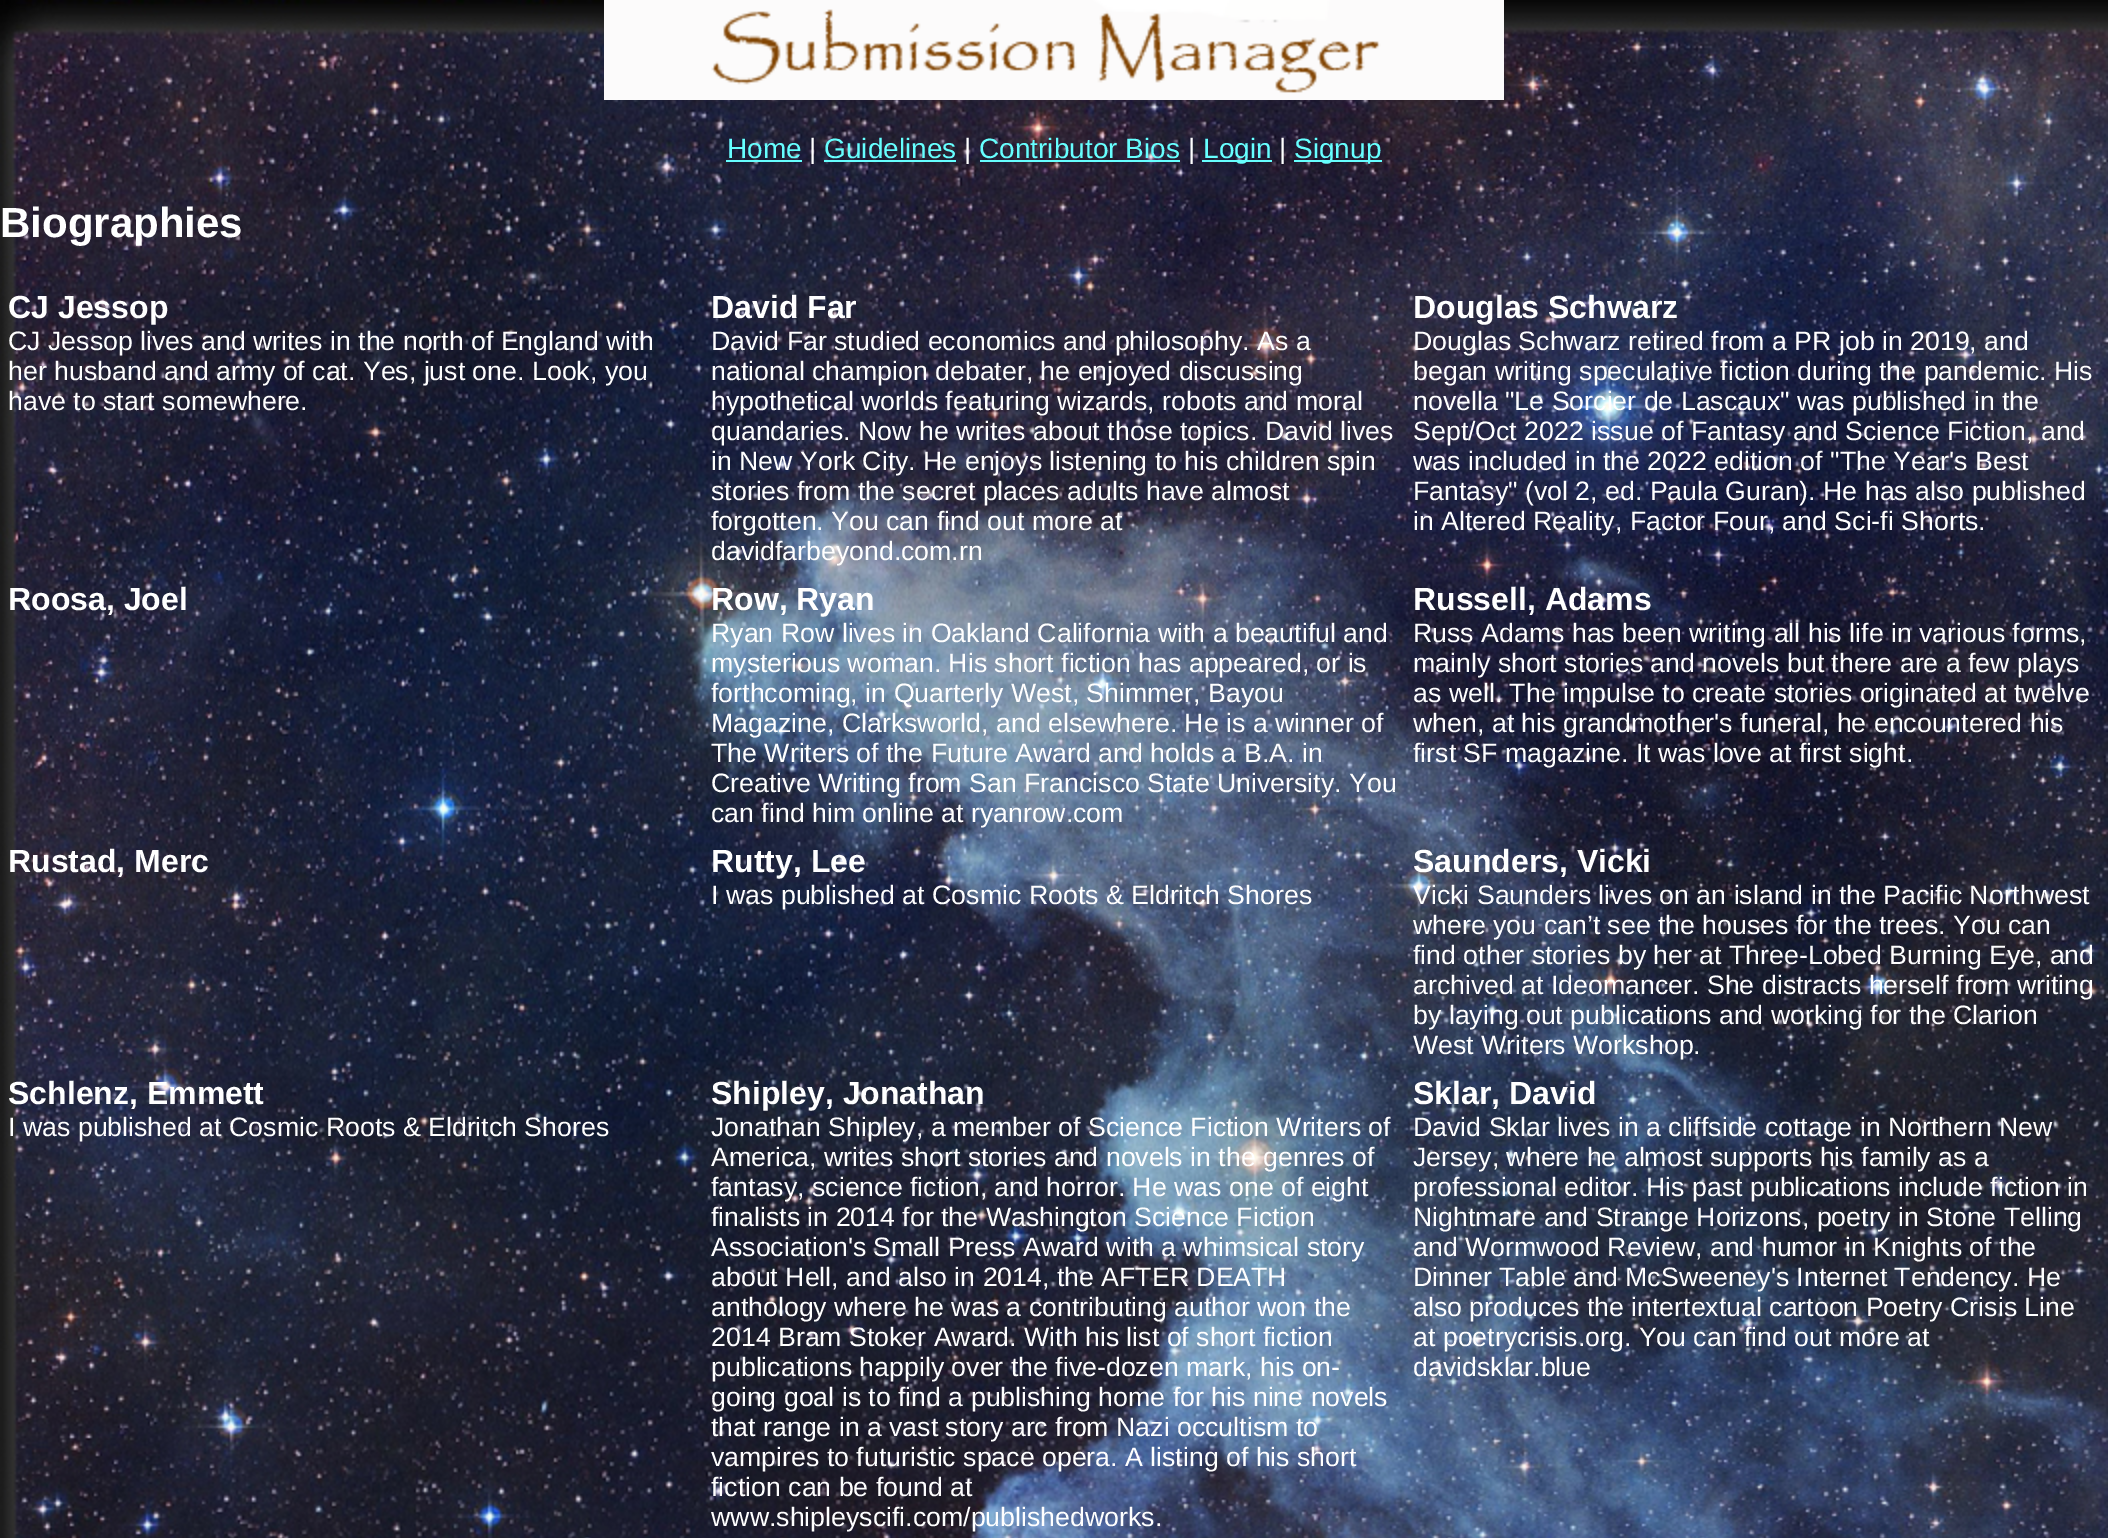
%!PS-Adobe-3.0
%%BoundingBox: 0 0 2108 1538
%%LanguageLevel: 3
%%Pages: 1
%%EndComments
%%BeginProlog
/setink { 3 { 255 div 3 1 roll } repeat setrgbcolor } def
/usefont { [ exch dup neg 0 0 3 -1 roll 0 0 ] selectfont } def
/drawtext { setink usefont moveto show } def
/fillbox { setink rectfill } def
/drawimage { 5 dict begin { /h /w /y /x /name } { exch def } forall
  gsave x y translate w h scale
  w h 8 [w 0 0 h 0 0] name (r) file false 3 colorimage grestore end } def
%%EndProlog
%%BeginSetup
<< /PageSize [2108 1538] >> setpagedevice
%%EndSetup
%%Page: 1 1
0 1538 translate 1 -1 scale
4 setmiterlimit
0 0 2108 1538 255 255 255 fillbox
(assets/img1.rgb) 0 0 2108 1538 drawimage
(assets/img2.rgb) 604 0 900 100 drawimage
(Home) 727 158 /LiberationSans-Regular 28 102 255 255 drawtext
726 160 76 2 102 255 255 fillbox
(|) 809 158 /LiberationSans-Regular 28 255 255 255 drawtext
(Guidelines) 824 158 /LiberationSans-Regular 28 102 255 255 drawtext
824 160 132 2 102 255 255 fillbox
(|) 964 158 /LiberationSans-Regular 28 255 255 255 drawtext
(Contributor Bios) 979 158 /LiberationSans-Regular 28 102 255 255 drawtext
980 160 200 2 102 255 255 fillbox
(|) 1188 158 /LiberationSans-Regular 28 255 255 255 drawtext
1202 160 70 2 102 255 255 fillbox
(Login) 1203 158 /LiberationSans-Regular 28 102 255 255 drawtext
(|) 1279 158 /LiberationSans-Regular 28 255 255 255 drawtext
1294 160 88 2 102 255 255 fillbox
(Signup) 1294 158 /LiberationSans-Regular 28 102 255 255 drawtext
(Biographies) 0 237 /LiberationSans-Bold 42 255 255 255 drawtext
(CJ Jessop) 8 318 /LiberationSans-Bold 32 255 255 255 drawtext
(CJ Jessop lives and writes in the north of England with) 8 350 /LiberationSans-Regular 26.7 255 255 255 drawtext
(her husband and army of cat. Yes, just one. Look, you) 8 380 /LiberationSans-Regular 26.7 255 255 255 drawtext
(have to start somewhere.) 8 410 /LiberationSans-Regular 26.7 255 255 255 drawtext
(David Far) 711 318 /LiberationSans-Bold 32 255 255 255 drawtext
(David Far studied economics and philosophy. As a) 711 350 /LiberationSans-Regular 26.7 255 255 255 drawtext
(national champion debater, he enjoyed discussing) 711 380 /LiberationSans-Regular 26.7 255 255 255 drawtext
(hypothetical worlds featuring wizards, robots and moral) 711 410 /LiberationSans-Regular 26.7 255 255 255 drawtext
(quandaries. Now he writes about those topics. David lives) 711 440 /LiberationSans-Regular 26.7 255 255 255 drawtext
(in New York City. He enjoys listening to his children spin) 711 470 /LiberationSans-Regular 26.7 255 255 255 drawtext
(stories from the secret places adults have almost) 711 500 /LiberationSans-Regular 26.7 255 255 255 drawtext
(forgotten. You can find out more at) 711 530 /LiberationSans-Regular 26.7 255 255 255 drawtext
(davidfarbeyond.com.rn) 711 560 /LiberationSans-Regular 26.7 255 255 255 drawtext
(Douglas Schwarz) 1413 318 /LiberationSans-Bold 32 255 255 255 drawtext
(Douglas Schwarz retired from a PR job in 2019, and) 1413 350 /LiberationSans-Regular 26.7 255 255 255 drawtext
(began writing speculative fiction during the pandemic. His) 1413 380 /LiberationSans-Regular 26.7 255 255 255 drawtext
(novella "Le Sorcier de Lascaux" was published in the) 1413 410 /LiberationSans-Regular 26.7 255 255 255 drawtext
(Sept/Oct 2022 issue of Fantasy and Science Fiction, and) 1413 440 /LiberationSans-Regular 26.7 255 255 255 drawtext
(was included in the 2022 edition of "The Year's Best) 1413 470 /LiberationSans-Regular 26.7 255 255 255 drawtext
(Fantasy" \(vol 2, ed. Paula Guran\). He has also published) 1413 500 /LiberationSans-Regular 26.7 255 255 255 drawtext
(in Altered Reality, Factor Four, and Sci-fi Shorts.) 1413 530 /LiberationSans-Regular 26.7 255 255 255 drawtext
(Roosa, Joel) 8 610 /LiberationSans-Bold 32 255 255 255 drawtext
(Row, Ryan) 711 610 /LiberationSans-Bold 32 255 255 255 drawtext
(Ryan Row lives in Oakland California with a beautiful and) 711 642 /LiberationSans-Regular 26.7 255 255 255 drawtext
(mysterious woman. His short fiction has appeared, or is) 711 672 /LiberationSans-Regular 26.7 255 255 255 drawtext
(forthcoming, in Quarterly West, Shimmer, Bayou) 711 702 /LiberationSans-Regular 26.7 255 255 255 drawtext
(Magazine, Clarksworld, and elsewhere. He is a winner of) 711 732 /LiberationSans-Regular 26.7 255 255 255 drawtext
(The Writers of the Future Award and holds a B.A. in) 711 762 /LiberationSans-Regular 26.7 255 255 255 drawtext
(Creative Writing from San Francisco State University. You) 711 792 /LiberationSans-Regular 26.7 255 255 255 drawtext
(can find him online at ryanrow.com) 711 822 /LiberationSans-Regular 26.7 255 255 255 drawtext
(Russell, Adams) 1413 610 /LiberationSans-Bold 32 255 255 255 drawtext
(Russ Adams has been writing all his life in various forms,) 1413 642 /LiberationSans-Regular 26.7 255 255 255 drawtext
(mainly short stories and novels but there are a few plays) 1413 672 /LiberationSans-Regular 26.7 255 255 255 drawtext
(as well. The impulse to create stories originated at twelve) 1413 702 /LiberationSans-Regular 26.7 255 255 255 drawtext
(when, at his grandmother's funeral, he encountered his) 1413 732 /LiberationSans-Regular 26.7 255 255 255 drawtext
(first SF magazine. It was love at first sight.) 1413 762 /LiberationSans-Regular 26.7 255 255 255 drawtext
(Rustad, Merc) 8 872 /LiberationSans-Bold 32 255 255 255 drawtext
(Rutty, Lee) 711 872 /LiberationSans-Bold 32 255 255 255 drawtext
(I was published at Cosmic Roots & Eldritch Shores) 711 904 /LiberationSans-Regular 26.7 255 255 255 drawtext
(Saunders, Vicki) 1413 872 /LiberationSans-Bold 32 255 255 255 drawtext
(Vicki Saunders lives on an island in the Pacific Northwest) 1413 904 /LiberationSans-Regular 26.7 255 255 255 drawtext
(where you can’t see the houses for the trees. You can) 1413 934 /LiberationSans-Regular 26.7 255 255 255 drawtext
(find other stories by her at Three-Lobed Burning Eye, and) 1413 964 /LiberationSans-Regular 26.7 255 255 255 drawtext
(archived at Ideomancer. She distracts herself from writing) 1413 994 /LiberationSans-Regular 26.7 255 255 255 drawtext
(by laying out publications and working for the Clarion) 1413 1024 /LiberationSans-Regular 26.7 255 255 255 drawtext
(West Writers Workshop.) 1413 1054 /LiberationSans-Regular 26.7 255 255 255 drawtext
(Schlenz, Emmett) 8 1104 /LiberationSans-Bold 32 255 255 255 drawtext
(I was published at Cosmic Roots & Eldritch Shores) 8 1136 /LiberationSans-Regular 26.7 255 255 255 drawtext
(Shipley, Jonathan) 711 1104 /LiberationSans-Bold 32 255 255 255 drawtext
(Jonathan Shipley, a member of Science Fiction Writers of) 711 1136 /LiberationSans-Regular 26.7 255 255 255 drawtext
(America, writes short stories and novels in the genres of) 711 1166 /LiberationSans-Regular 26.7 255 255 255 drawtext
(fantasy, science fiction, and horror. He was one of eight) 711 1196 /LiberationSans-Regular 26.7 255 255 255 drawtext
(finalists in 2014 for the Washington Science Fiction) 711 1226 /LiberationSans-Regular 26.7 255 255 255 drawtext
(Association's Small Press Award with a whimsical story) 711 1256 /LiberationSans-Regular 26.7 255 255 255 drawtext
(about Hell, and also in 2014, the AFTER DEATH) 711 1286 /LiberationSans-Regular 26.7 255 255 255 drawtext
(anthology where he was a contributing author won the) 711 1316 /LiberationSans-Regular 26.7 255 255 255 drawtext
(2014 Bram Stoker Award. With his list of short fiction) 711 1346 /LiberationSans-Regular 26.7 255 255 255 drawtext
(publications happily over the five-dozen mark, his on-) 711 1376 /LiberationSans-Regular 26.7 255 255 255 drawtext
(going goal is to find a publishing home for his nine novels) 711 1406 /LiberationSans-Regular 26.7 255 255 255 drawtext
(that range in a vast story arc from Nazi occultism to) 711 1436 /LiberationSans-Regular 26.7 255 255 255 drawtext
(vampires to futuristic space opera. A listing of his short) 711 1466 /LiberationSans-Regular 26.7 255 255 255 drawtext
(fiction can be found at) 711 1496 /LiberationSans-Regular 26.7 255 255 255 drawtext
(www.shipleyscifi.com/publishedworks.) 711 1526 /LiberationSans-Regular 26.7 255 255 255 drawtext
(Sklar, David) 1413 1104 /LiberationSans-Bold 32 255 255 255 drawtext
(David Sklar lives in a cliffside cottage in Northern New) 1413 1136 /LiberationSans-Regular 26.7 255 255 255 drawtext
(Jersey, where he almost supports his family as a) 1413 1166 /LiberationSans-Regular 26.7 255 255 255 drawtext
(professional editor. His past publications include fiction in) 1413 1196 /LiberationSans-Regular 26.7 255 255 255 drawtext
(Nightmare and Strange Horizons, poetry in Stone Telling) 1413 1226 /LiberationSans-Regular 26.7 255 255 255 drawtext
(and Wormwood Review, and humor in Knights of the) 1413 1256 /LiberationSans-Regular 26.7 255 255 255 drawtext
(Dinner Table and McSweeney's Internet Tendency. He) 1413 1286 /LiberationSans-Regular 26.7 255 255 255 drawtext
(also produces the intertextual cartoon Poetry Crisis Line) 1413 1316 /LiberationSans-Regular 26.7 255 255 255 drawtext
(at poetrycrisis.org. You can find out more at) 1413 1346 /LiberationSans-Regular 26.7 255 255 255 drawtext
(davidsklar.blue) 1413 1376 /LiberationSans-Regular 26.7 255 255 255 drawtext
showpage
%%EOF
